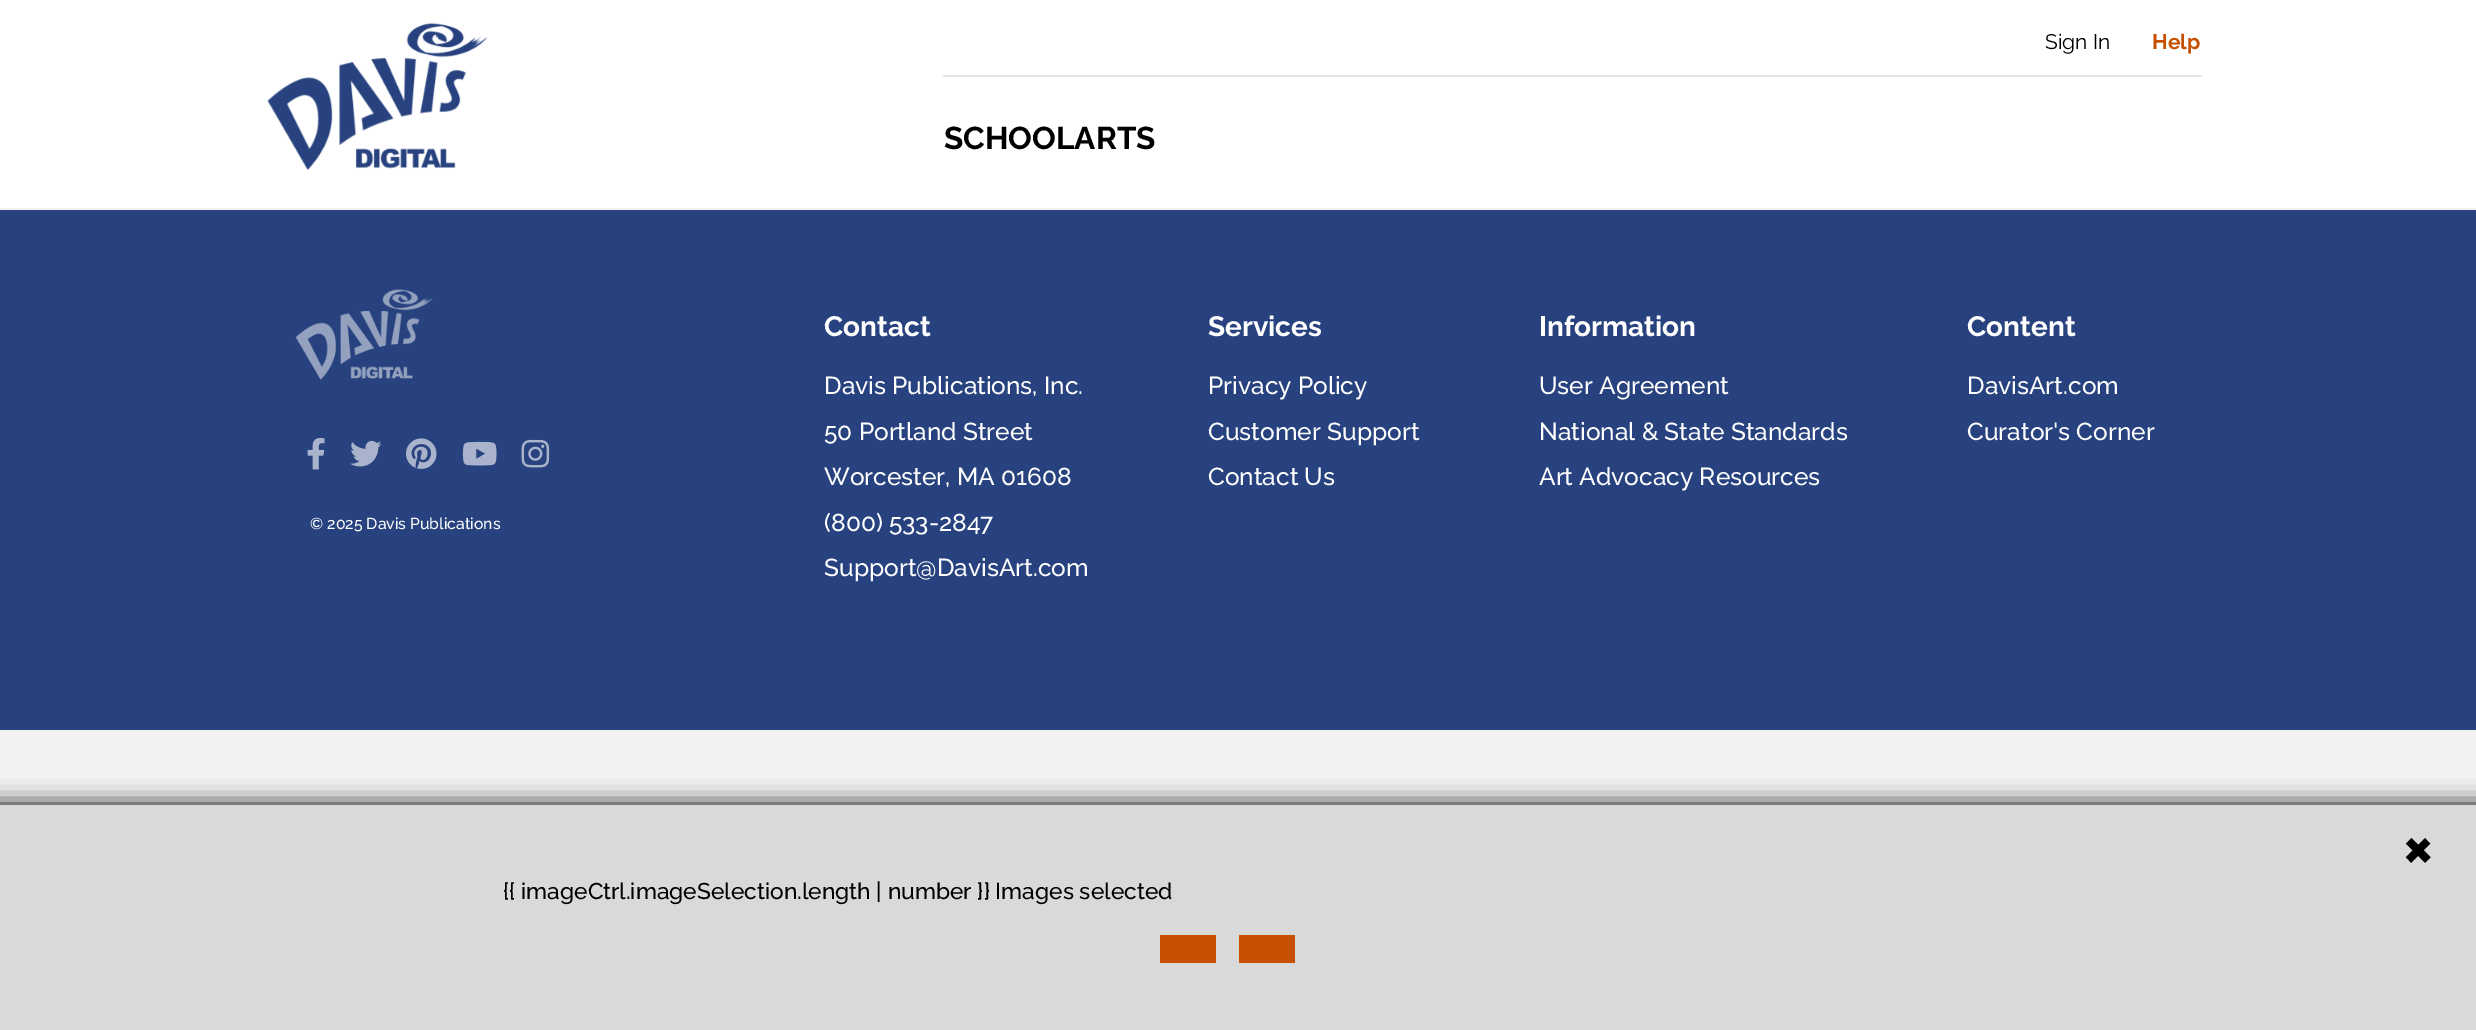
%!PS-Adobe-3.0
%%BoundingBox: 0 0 2476 1030
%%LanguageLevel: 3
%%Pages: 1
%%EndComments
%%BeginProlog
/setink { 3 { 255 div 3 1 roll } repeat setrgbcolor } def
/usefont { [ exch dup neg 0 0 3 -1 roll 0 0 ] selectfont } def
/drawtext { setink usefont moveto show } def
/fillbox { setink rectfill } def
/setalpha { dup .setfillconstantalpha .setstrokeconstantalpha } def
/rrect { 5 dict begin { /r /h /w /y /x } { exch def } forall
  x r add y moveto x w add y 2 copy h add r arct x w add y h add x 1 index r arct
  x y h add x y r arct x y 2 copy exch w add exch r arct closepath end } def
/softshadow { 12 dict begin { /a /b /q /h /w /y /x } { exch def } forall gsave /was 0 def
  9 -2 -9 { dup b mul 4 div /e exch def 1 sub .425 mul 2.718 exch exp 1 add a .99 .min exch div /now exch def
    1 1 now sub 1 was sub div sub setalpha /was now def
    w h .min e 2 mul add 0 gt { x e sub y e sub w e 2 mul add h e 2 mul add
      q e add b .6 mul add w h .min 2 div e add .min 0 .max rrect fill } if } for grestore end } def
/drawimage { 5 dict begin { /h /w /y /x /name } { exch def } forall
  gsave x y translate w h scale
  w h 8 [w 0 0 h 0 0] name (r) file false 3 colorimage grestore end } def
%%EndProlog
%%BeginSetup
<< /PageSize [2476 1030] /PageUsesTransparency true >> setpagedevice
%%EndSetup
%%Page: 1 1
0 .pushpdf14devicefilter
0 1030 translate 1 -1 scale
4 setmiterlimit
0 0 2476 1030 242 242 242 fillbox
0 0 2476 208 255 255 255 fillbox
(assets/img1.rgb) 267 23 220 147 drawimage
943 75 1259 2 230 230 230 fillbox
(Sign In) 2045 49 /Raleway-Regular 21 0 0 0 drawtext
(Help) 2152 49 /Raleway-Bold 21 199 80 0 drawtext
(SCHOOLARTS) 944 149 /Raleway-Bold 31.5 0 0 0 drawtext
0 210 2476 520 39 66 126 fillbox
(assets/img2.rgb) 295 289 138 91 drawimage
(assets/img3.rgb) 307 437 18 33 drawimage
(assets/img4.rgb) 350 440 32 27 drawimage
(assets/img5.rgb) 406 438 31 31 drawimage
(assets/img6.rgb) 462 441 35 25 drawimage
(assets/img7.rgb) 521 439 29 29 drawimage
(© 2025 Davis Publications) 310 529 /Raleway-Medium 15.75 255 255 255 drawtext
(Contact) 824 336 /Raleway-Bold 28 255 255 255 drawtext
(Davis Publications, Inc.) 824 394 /Raleway-Medium 24.5 255 255 255 drawtext
(50 Portland Street) 824 440 /Raleway-Medium 24.5 255 255 255 drawtext
(Worcester, MA 01608) 824 485 /Raleway-Medium 24.5 255 255 255 drawtext
(\(800\) 533-2847) 824 531 /Raleway-Medium 24.5 255 255 255 drawtext
(Support@DavisArt.com) 824 576 /Raleway-Medium 24.5 255 255 255 drawtext
(Services) 1208 336 /Raleway-Bold 28 255 255 255 drawtext
(Privacy Policy) 1208 394 /Raleway-Medium 24.5 255 255 255 drawtext
(Customer Support) 1208 440 /Raleway-Medium 24.5 255 255 255 drawtext
(Contact Us) 1208 485 /Raleway-Medium 24.5 255 255 255 drawtext
(Information) 1539 336 /Raleway-Bold 28 255 255 255 drawtext
(User Agreement) 1539 394 /Raleway-Medium 24.5 255 255 255 drawtext
(National & State Standards) 1539 440 /Raleway-Medium 24.5 255 255 255 drawtext
(Art Advocacy Resources) 1539 485 /Raleway-Medium 24.5 255 255 255 drawtext
(Content) 1967 336 /Raleway-Bold 28 255 255 255 drawtext
(DavisArt.com) 1967 394 /Raleway-Medium 24.5 255 255 255 drawtext
(Curator's Corner) 1967 440 /Raleway-Medium 24.5 255 255 255 drawtext
0 0 0 setink
-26 805 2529 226 0 11.5 1 softshadow
0 805 2476 225 217 217 217 fillbox
(×) 2402 869 /Raleway-Bold 68 0 0 0 drawtext
({{ imageCtrl.imageSelection.length | number }} Images selected) 503 899 /Raleway-Medium 22.75 0 0 0 drawtext
1160 935 56 28 199 80 0 fillbox
1239 935 56 28 199 80 0 fillbox
.poppdf14devicefilter showpage
%%EOF
